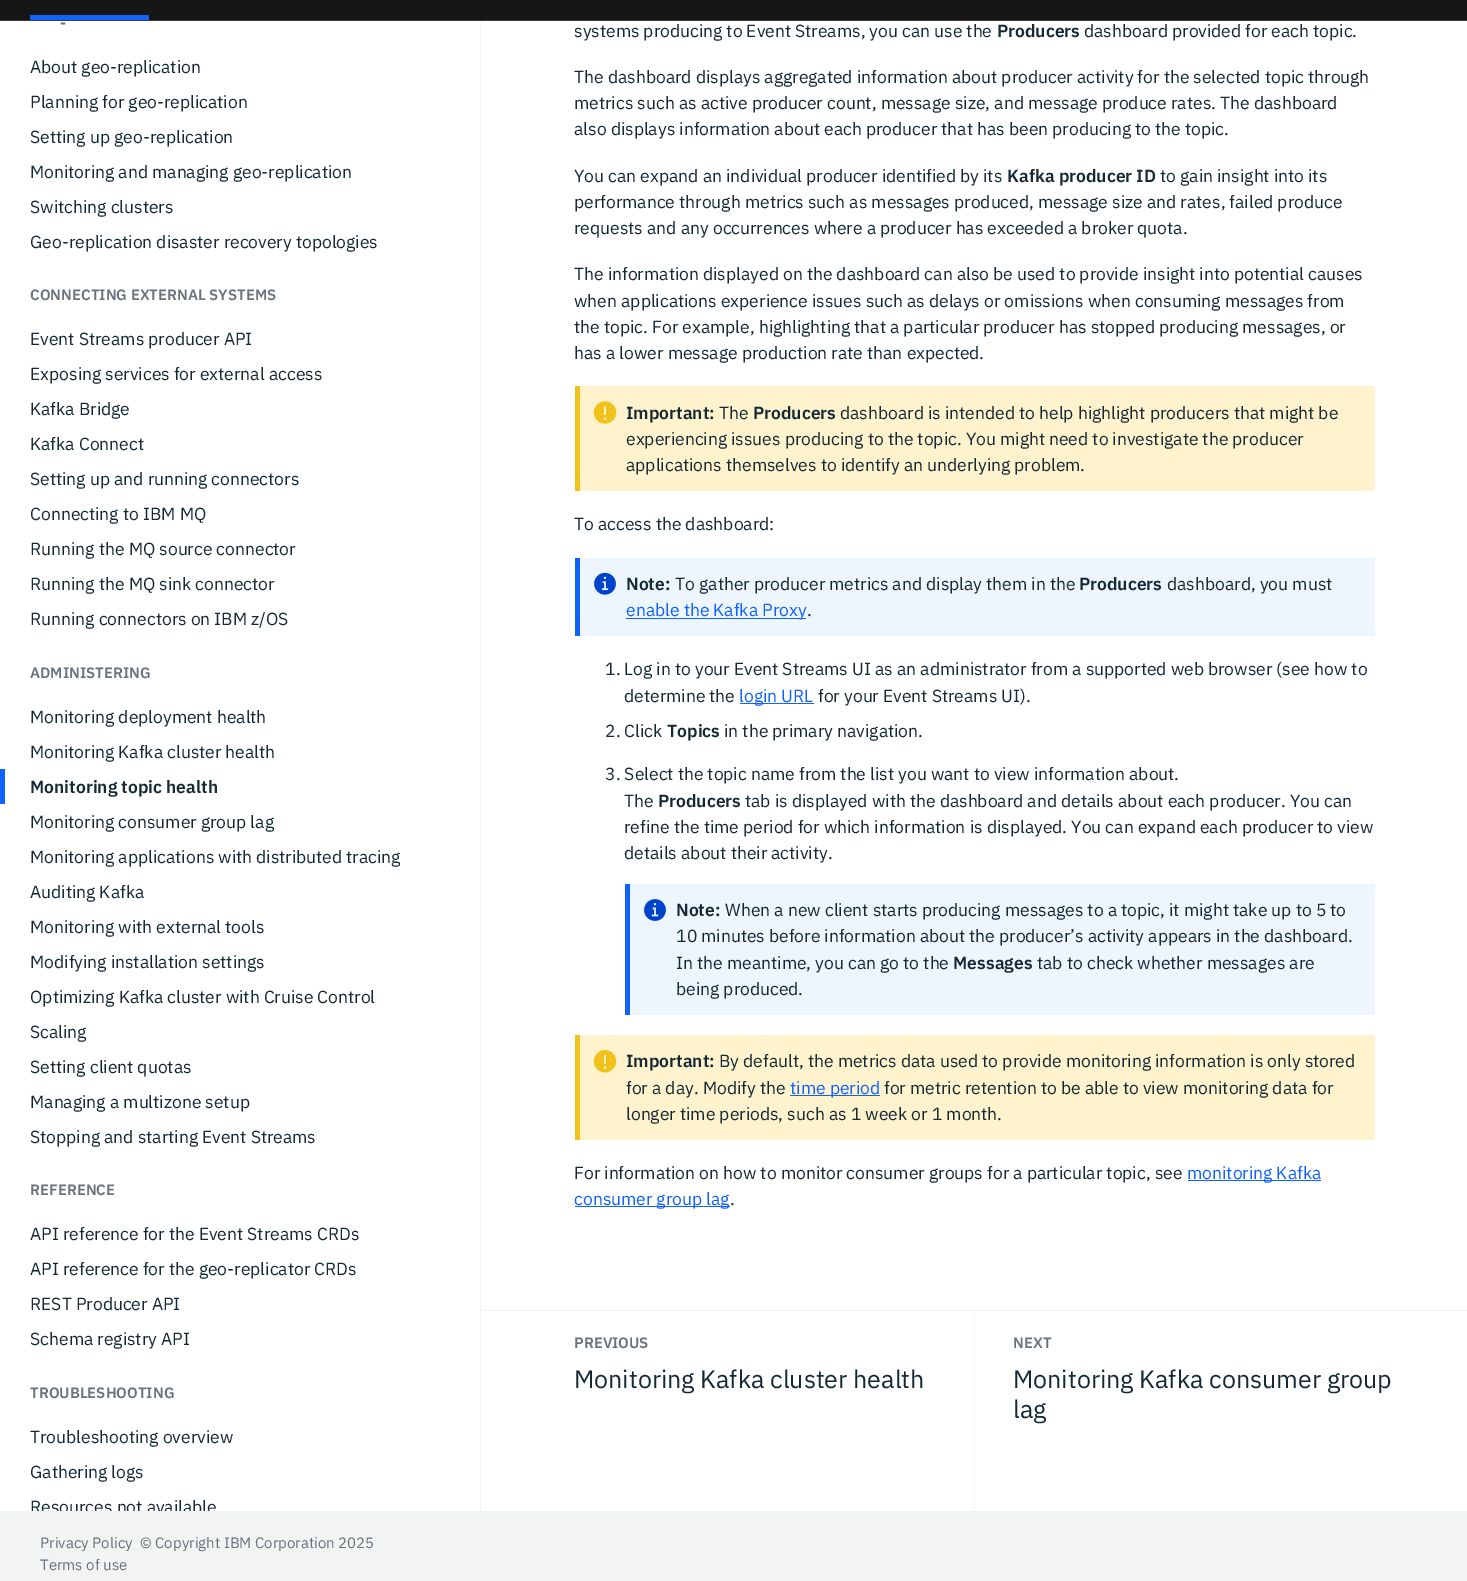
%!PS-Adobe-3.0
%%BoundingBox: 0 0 1467 1581
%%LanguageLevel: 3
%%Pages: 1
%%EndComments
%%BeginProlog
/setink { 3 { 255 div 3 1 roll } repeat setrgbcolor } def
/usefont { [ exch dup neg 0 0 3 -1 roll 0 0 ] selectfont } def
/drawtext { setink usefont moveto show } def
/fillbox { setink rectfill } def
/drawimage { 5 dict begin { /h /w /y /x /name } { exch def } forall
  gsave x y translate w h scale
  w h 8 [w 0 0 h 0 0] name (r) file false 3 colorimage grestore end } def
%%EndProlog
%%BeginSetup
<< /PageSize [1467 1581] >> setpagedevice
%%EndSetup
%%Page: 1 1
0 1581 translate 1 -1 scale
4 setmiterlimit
0 0 1467 1581 255 255 255 fillbox
0 0 1467 20 22 22 22 fillbox
0 20 1467 1 61 61 61 fillbox
30 15 119 5 15 98 254 fillbox
480 21 1 1490 243 243 243 fillbox
(-) 60 28 /IBMPlexSans-SemiBold 15 104 115 124 drawtext
(About geo-replication) 30 73 /IBMPlexSans-Regular 17.5 21 41 53 drawtext
(Planning for geo-replication) 30 108 /IBMPlexSans-Regular 17.5 21 41 53 drawtext
(Setting up geo-replication) 30 143 /IBMPlexSans-Regular 17.5 21 41 53 drawtext
(Monitoring and managing geo-replication) 30 178 /IBMPlexSans-Regular 17.5 21 41 53 drawtext
(Switching clusters) 30 213 /IBMPlexSans-Regular 17.5 21 41 53 drawtext
(Geo-replication disaster recovery topologies) 30 248 /IBMPlexSans-Regular 17.5 21 41 53 drawtext
(CONNECTING EXTERNAL SYSTEMS) 30 300 /IBMPlexSans-SemiBold 15 104 115 124 drawtext
(Event Streams producer API) 30 345 /IBMPlexSans-Regular 17.5 21 41 53 drawtext
(Exposing services for external access) 30 380 /IBMPlexSans-Regular 17.5 21 41 53 drawtext
(Kafka Bridge) 30 415 /IBMPlexSans-Regular 17.5 21 41 53 drawtext
(Kafka Connect) 30 450 /IBMPlexSans-Regular 17.5 21 41 53 drawtext
(Setting up and running connectors) 30 485 /IBMPlexSans-Regular 17.5 21 41 53 drawtext
(Connecting to IBM MQ) 30 520 /IBMPlexSans-Regular 17.5 21 41 53 drawtext
(Running the MQ source connector) 30 555 /IBMPlexSans-Regular 17.5 21 41 53 drawtext
(Running the MQ sink connector) 30 590 /IBMPlexSans-Regular 17.5 21 41 53 drawtext
(Running connectors on IBM z/OS) 30 625 /IBMPlexSans-Regular 17.5 21 41 53 drawtext
(ADMINISTERING) 30 678 /IBMPlexSans-SemiBold 15 104 115 124 drawtext
(Monitoring deployment health) 30 723 /IBMPlexSans-Regular 17.5 21 41 53 drawtext
(Monitoring Kafka cluster health) 30 758 /IBMPlexSans-Regular 17.5 21 41 53 drawtext
0 769 5 35 15 98 254 fillbox
(Monitoring topic health) 30 793 /IBMPlexSans-SemiBold 17.5 21 41 53 drawtext
(Monitoring consumer group lag) 30 828 /IBMPlexSans-Regular 17.5 21 41 53 drawtext
(Monitoring applications with distributed tracing) 30 863 /IBMPlexSans-Regular 17.5 21 41 53 drawtext
(Auditing Kafka) 30 898 /IBMPlexSans-Regular 17.5 21 41 53 drawtext
(Monitoring with external tools) 30 933 /IBMPlexSans-Regular 17.5 21 41 53 drawtext
(Modifying installation settings) 30 968 /IBMPlexSans-Regular 17.5 21 41 53 drawtext
(Optimizing Kafka cluster with Cruise Control) 30 1003 /IBMPlexSans-Regular 17.5 21 41 53 drawtext
(Scaling) 30 1038 /IBMPlexSans-Regular 17.5 21 41 53 drawtext
(Setting client quotas) 30 1073 /IBMPlexSans-Regular 17.5 21 41 53 drawtext
(Managing a multizone setup) 30 1108 /IBMPlexSans-Regular 17.5 21 41 53 drawtext
(Stopping and starting Event Streams) 30 1143 /IBMPlexSans-Regular 17.5 21 41 53 drawtext
(REFERENCE) 30 1195 /IBMPlexSans-SemiBold 15 104 115 124 drawtext
(API reference for the Event Streams CRDs) 30 1240 /IBMPlexSans-Regular 17.5 21 41 53 drawtext
(API reference for the geo-replicator CRDs) 30 1275 /IBMPlexSans-Regular 17.5 21 41 53 drawtext
(REST Producer API) 30 1310 /IBMPlexSans-Regular 17.5 21 41 53 drawtext
(Schema registry API) 30 1345 /IBMPlexSans-Regular 17.5 21 41 53 drawtext
(TROUBLESHOOTING) 30 1398 /IBMPlexSans-SemiBold 15 104 115 124 drawtext
(Troubleshooting overview) 30 1443 /IBMPlexSans-Regular 17.5 21 41 53 drawtext
(Gathering logs) 30 1478 /IBMPlexSans-Regular 17.5 21 41 53 drawtext
gsave
0 0 480 1511 rectclip
(Resources not available) 30 1513 /IBMPlexSans-Regular 17.5 21 41 53 drawtext
grestore
(systems producing to Event Streams, you can use the) 574 37 /IBMPlexSans-Regular 17.5 21 41 53 drawtext
(Producers) 997 37 /IBMPlexSans-SemiBold 17.5 21 41 53 drawtext
(dashboard provided for each topic.) 1084 37 /IBMPlexSans-Regular 17.5 21 41 53 drawtext
(The dashboard displays aggregated information about producer activity for the selected topic through) 574 83 /IBMPlexSans-Regular 17.5 21 41 53 drawtext
(metrics such as active producer count, message size, and message produce rates. The dashboard) 574 109 /IBMPlexSans-Regular 17.5 21 41 53 drawtext
(also displays information about each producer that has been producing to the topic.) 574 135 /IBMPlexSans-Regular 17.5 21 41 53 drawtext
(You can expand an individual producer identified by its) 574 182 /IBMPlexSans-Regular 17.5 21 41 53 drawtext
(Kafka producer ID) 1007 182 /IBMPlexSans-SemiBold 17.5 21 41 53 drawtext
(to gain insight into its) 1160 182 /IBMPlexSans-Regular 17.5 21 41 53 drawtext
(performance through metrics such as messages produced, message size and rates, failed produce) 574 208 /IBMPlexSans-Regular 17.5 21 41 53 drawtext
(requests and any occurrences where a producer has exceeded a broker quota.) 574 234 /IBMPlexSans-Regular 17.5 21 41 53 drawtext
(The information displayed on the dashboard can also be used to provide insight into potential causes) 574 280 /IBMPlexSans-Regular 17.5 21 41 53 drawtext
(when applications experience issues such as delays or omissions when consuming messages from) 574 307 /IBMPlexSans-Regular 17.5 21 41 53 drawtext
(the topic. For example, highlighting that a particular producer has stopped producing messages, or) 574 333 /IBMPlexSans-Regular 17.5 21 41 53 drawtext
(has a lower message production rate than expected.) 574 359 /IBMPlexSans-Regular 17.5 21 41 53 drawtext
580 386 795 105 255 243 205 fillbox
575 386 5 105 241 194 27 fillbox
(assets/img1.rgb) 593 401 24 23 drawimage
(Important:) 626 419 /IBMPlexSans-SemiBold 17.5 21 41 53 drawtext
(The) 719 419 /IBMPlexSans-Regular 17.5 21 41 53 drawtext
(Producers) 753 419 /IBMPlexSans-SemiBold 17.5 21 41 53 drawtext
(dashboard is intended to help highlight producers that might be) 840 419 /IBMPlexSans-Regular 17.5 21 41 53 drawtext
(experiencing issues producing to the topic. You might need to investigate the producer) 626 445 /IBMPlexSans-Regular 17.5 21 41 53 drawtext
(applications themselves to identify an underlying problem.) 626 471 /IBMPlexSans-Regular 17.5 21 41 53 drawtext
(To access the dashboard:) 574 530 /IBMPlexSans-Regular 17.5 21 41 53 drawtext
580 558 795 78 237 245 255 fillbox
575 558 5 78 15 98 254 fillbox
(assets/img2.rgb) 594 572 22 23 drawimage
(Note:) 626 590 /IBMPlexSans-SemiBold 17.5 21 41 53 drawtext
(To gather producer metrics and display them in the) 675 590 /IBMPlexSans-Regular 17.5 21 41 53 drawtext
(Producers) 1079 590 /IBMPlexSans-SemiBold 17.5 21 41 53 drawtext
(dashboard, you must) 1167 590 /IBMPlexSans-Regular 17.5 21 41 53 drawtext
626 618 180 1 15 98 254 fillbox
(enable the Kafka Proxy) 626 616 /IBMPlexSans-Regular 17.5 15 98 254 drawtext
(.) 807 616 /IBMPlexSans-Regular 17.5 21 41 53 drawtext
(1. Log in to your Event Streams UI as an administrator from a supported web browser \(see how to) 605 675 /IBMPlexSans-Regular 17.5 21 41 53 drawtext
(determine the) 624 702 /IBMPlexSans-Regular 17.5 21 41 53 drawtext
740 703 74 1 15 98 254 fillbox
(login URL) 739 702 /IBMPlexSans-Regular 17.5 15 98 254 drawtext
(for your Event Streams UI\).) 818 702 /IBMPlexSans-Regular 17.5 21 41 53 drawtext
(2. Click) 605 737 /IBMPlexSans-Regular 17.5 21 41 53 drawtext
(Topics) 667 737 /IBMPlexSans-SemiBold 17.5 21 41 53 drawtext
(in the primary navigation.) 724 737 /IBMPlexSans-Regular 17.5 21 41 53 drawtext
(3. Select the topic name from the list you want to view information about.) 605 780 /IBMPlexSans-Regular 17.5 21 41 53 drawtext
(The) 624 807 /IBMPlexSans-Regular 17.5 21 41 53 drawtext
(Producers) 658 807 /IBMPlexSans-SemiBold 17.5 21 41 53 drawtext
(tab is displayed with the dashboard and details about each producer. You can) 745 807 /IBMPlexSans-Regular 17.5 21 41 53 drawtext
(refine the time period for which information is displayed. You can expand each producer to view) 624 833 /IBMPlexSans-Regular 17.5 21 41 53 drawtext
(details about their activity.) 624 859 /IBMPlexSans-Regular 17.5 21 41 53 drawtext
630 884 745 131 237 245 255 fillbox
625 884 5 131 15 98 254 fillbox
(assets/img3.rgb) 644 899 22 22 drawimage
(Note:) 676 916 /IBMPlexSans-SemiBold 17.5 21 41 53 drawtext
(When a new client starts producing messages to a topic, it might take up to 5 to) 725 916 /IBMPlexSans-Regular 17.5 21 41 53 drawtext
(10 minutes before information about the producer’s activity appears in the dashboard.) 676 942 /IBMPlexSans-Regular 17.5 21 41 53 drawtext
(In the meantime, you can go to the) 676 969 /IBMPlexSans-Regular 17.5 21 41 53 drawtext
(Messages) 953 969 /IBMPlexSans-SemiBold 17.5 21 41 53 drawtext
(tab to check whether messages are) 1037 969 /IBMPlexSans-Regular 17.5 21 41 53 drawtext
(being produced.) 676 995 /IBMPlexSans-Regular 17.5 21 41 53 drawtext
580 1035 795 105 255 243 205 fillbox
575 1035 5 105 241 194 27 fillbox
(assets/img4.rgb) 593 1050 24 23 drawimage
(Important:) 626 1067 /IBMPlexSans-SemiBold 17.5 21 41 53 drawtext
(By default, the metrics data used to provide monitoring information is only stored) 719 1067 /IBMPlexSans-Regular 17.5 21 41 53 drawtext
(for a day. Modify the) 626 1094 /IBMPlexSans-Regular 17.5 21 41 53 drawtext
790 1095 90 1 15 98 254 fillbox
(time period) 790 1094 /IBMPlexSans-Regular 17.5 15 98 254 drawtext
(for metric retention to be able to view monitoring data for) 884 1094 /IBMPlexSans-Regular 17.5 21 41 53 drawtext
(longer time periods, such as 1 week or 1 month.) 626 1120 /IBMPlexSans-Regular 17.5 21 41 53 drawtext
(For information on how to monitor consumer groups for a particular topic, see) 574 1179 /IBMPlexSans-Regular 17.5 21 41 53 drawtext
1188 1180 133 1 15 98 254 fillbox
(monitoring Kafka) 1187 1179 /IBMPlexSans-Regular 17.5 15 98 254 drawtext
575 1206 155 1 15 98 254 fillbox
(consumer group lag) 574 1205 /IBMPlexSans-Regular 17.5 15 98 254 drawtext
(.) 730 1205 /IBMPlexSans-Regular 17.5 21 41 53 drawtext
481 1310 986 1 243 243 243 fillbox
974 1311 1 200 243 243 243 fillbox
(PREVIOUS) 574 1348 /IBMPlexSans-SemiBold 15 104 115 124 drawtext
(Monitoring Kafka cluster health) 574 1388 /IBMPlexSans-Regular 25 21 41 53 drawtext
(NEXT) 1013 1348 /IBMPlexSans-SemiBold 15 104 115 124 drawtext
(Monitoring Kafka consumer group) 1013 1388 /IBMPlexSans-Regular 25 21 41 53 drawtext
(lag) 1013 1418 /IBMPlexSans-Regular 25 21 41 53 drawtext
0 1511 1467 70 242 243 243 fillbox
(Privacy Policy) 40 1548 /IBMPlexSans-Regular 15 104 115 124 drawtext
(© Copyright IBM Corporation 2025) 140 1548 /IBMPlexSans-Regular 15 104 115 124 drawtext
(Terms of use) 40 1570 /IBMPlexSans-Regular 15 104 115 124 drawtext
showpage
%%EOF
